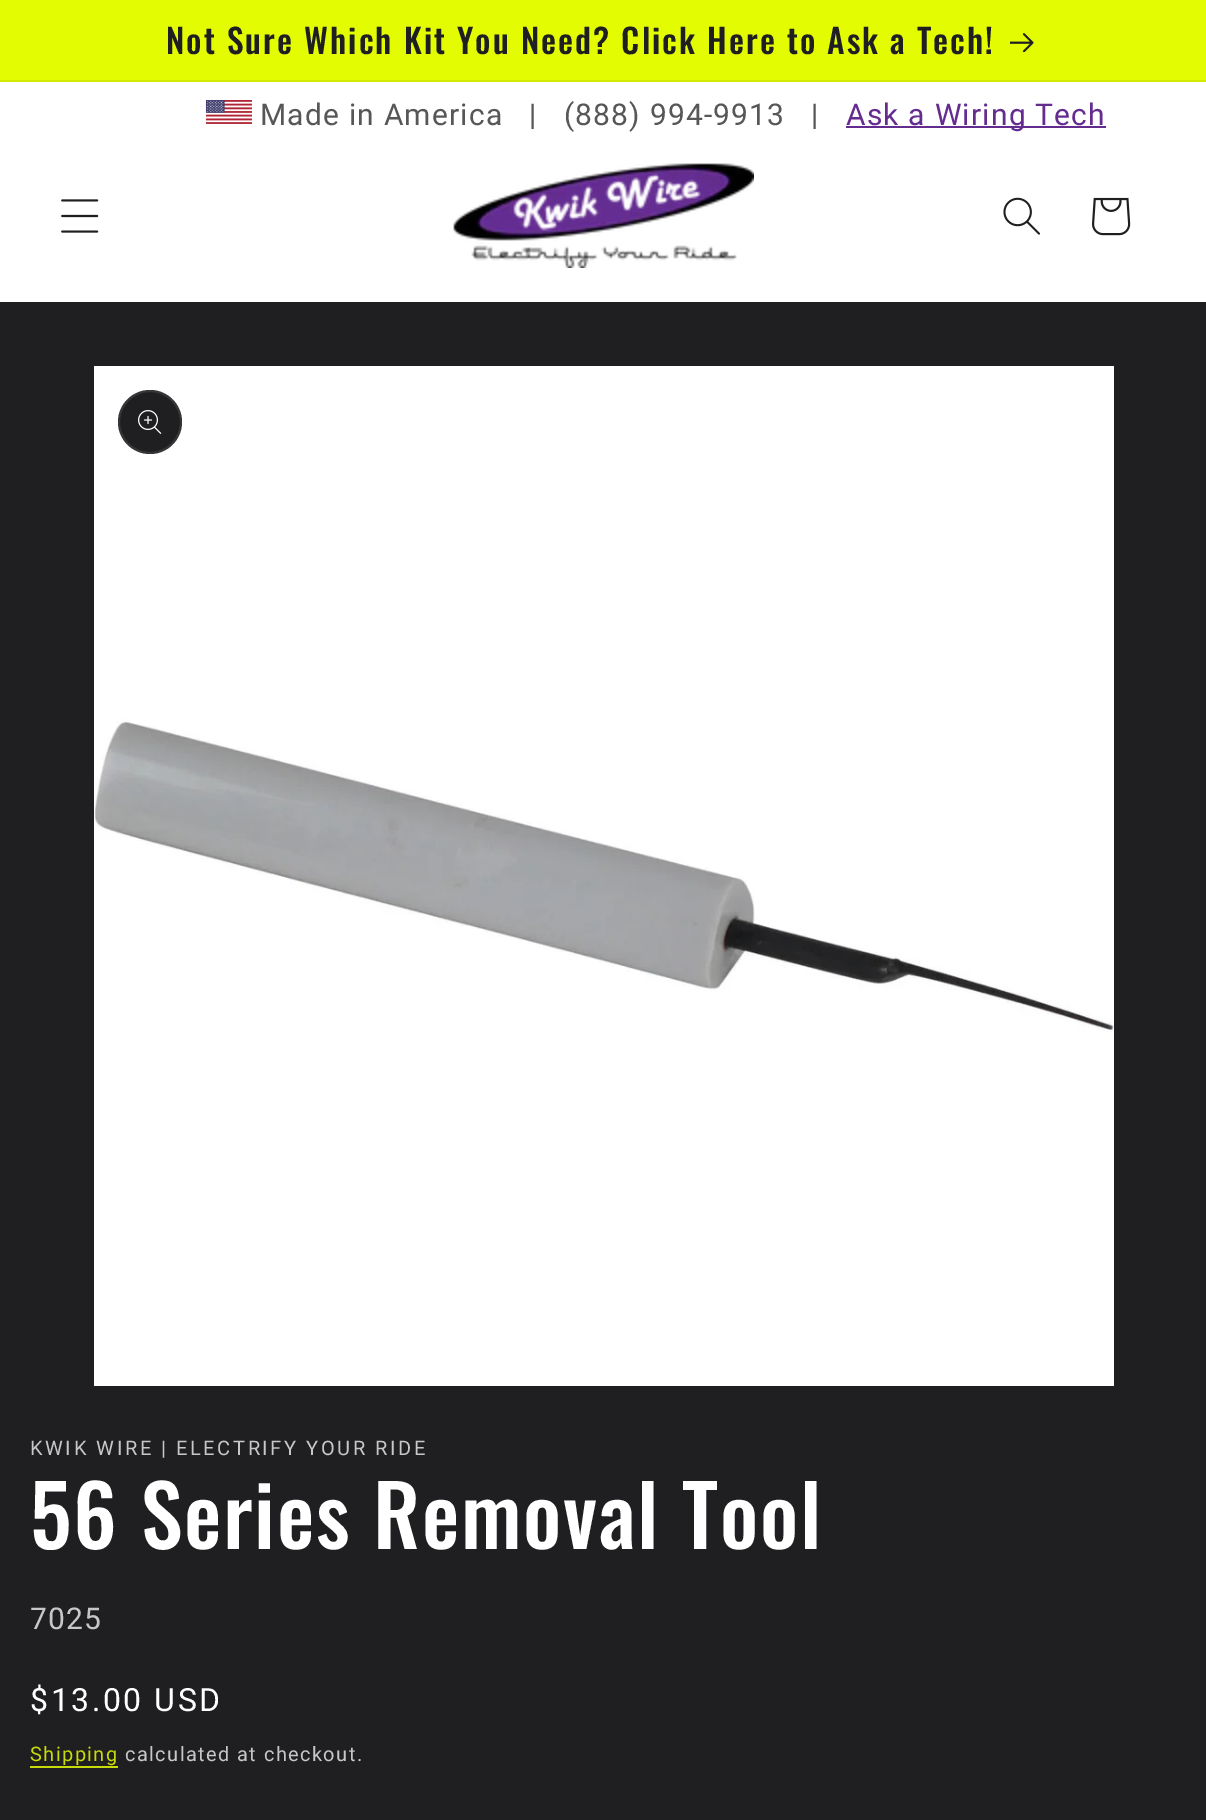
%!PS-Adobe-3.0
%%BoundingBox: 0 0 1206 1820
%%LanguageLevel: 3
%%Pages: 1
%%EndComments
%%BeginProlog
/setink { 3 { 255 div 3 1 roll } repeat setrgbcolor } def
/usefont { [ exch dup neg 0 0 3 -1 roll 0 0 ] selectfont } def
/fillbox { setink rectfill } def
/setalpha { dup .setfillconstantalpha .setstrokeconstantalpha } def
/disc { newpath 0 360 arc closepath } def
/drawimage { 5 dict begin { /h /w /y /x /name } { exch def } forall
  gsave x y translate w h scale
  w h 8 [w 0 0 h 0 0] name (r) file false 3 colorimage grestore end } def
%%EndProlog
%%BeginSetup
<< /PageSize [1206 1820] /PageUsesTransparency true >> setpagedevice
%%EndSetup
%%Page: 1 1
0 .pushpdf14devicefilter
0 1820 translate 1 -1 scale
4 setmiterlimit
0 0 1206 1820 31 31 33 fillbox
0 0 1206 80 227 252 2 fillbox
0 80 1206 2 211 234 4 fillbox
/Oswald-Medium 33.6 usefont
31 31 33 setink
166 54 moveto 2 0 (Not Sure Which Kit You Need? Click Here to Ask a Tech!) ashow
(assets/img1.rgb) 1010 33 24 19 drawimage
0 82 1206 220 255 255 255 fillbox
(assets/img2.rgb) 61 199 38 34 drawimage
(assets/img3.rgb) 453 163 301 105 drawimage
(assets/img4.rgb) 1003 197 37 38 drawimage
(assets/img5.rgb) 1092 197 39 39 drawimage
(assets/img6.rgb) 205 100 47 24 drawimage
/Roboto-Regular 30 usefont
87 87 89 setink
260 125 moveto 1.2 0 (Made in America   |   \(888\) 994-9913   |) ashow
846 126 260 2 101 44 144 fillbox
846 125 moveto 1.2 0 (Ask a Wiring Tech) ashow
(assets/img7.rgb) 94 366 1020 1020 drawimage
31 31 33 setink
150 422 32 disc fill
0.1 setalpha
255 255 255 setink
2 setlinewidth
150 422 31 disc stroke
1 setalpha
(assets/img8.rgb) 138 410 24 24 drawimage
/Roboto-Regular 20 usefont
199 199 200 setink
30 1455 moveto 2.6 0 (KWIK WIRE | ELECTRIFY YOUR RIDE) ashow
/Oswald-Medium 84 usefont
255 255 255 setink
30 1549 moveto 1.7 0 (56 Series Removal Tool) ashow
/Roboto-Regular 30 usefont
199 199 200 setink
30 1629 moveto 1.2 0 (7025) ashow
/Roboto-Regular 32 usefont
255 255 255 setink
30 1711 moveto 2.6 0 ($13.00 USD) ashow
/Roboto-Regular 20 usefont
198 219 7 setink
30 1761 moveto 1.4 0 (Shipping) ashow
30 1766 88 2 198 219 7 fillbox
199 199 200 setink
125 1761 moveto 1.4 0 (calculated at checkout.) ashow
.poppdf14devicefilter showpage
%%EOF
